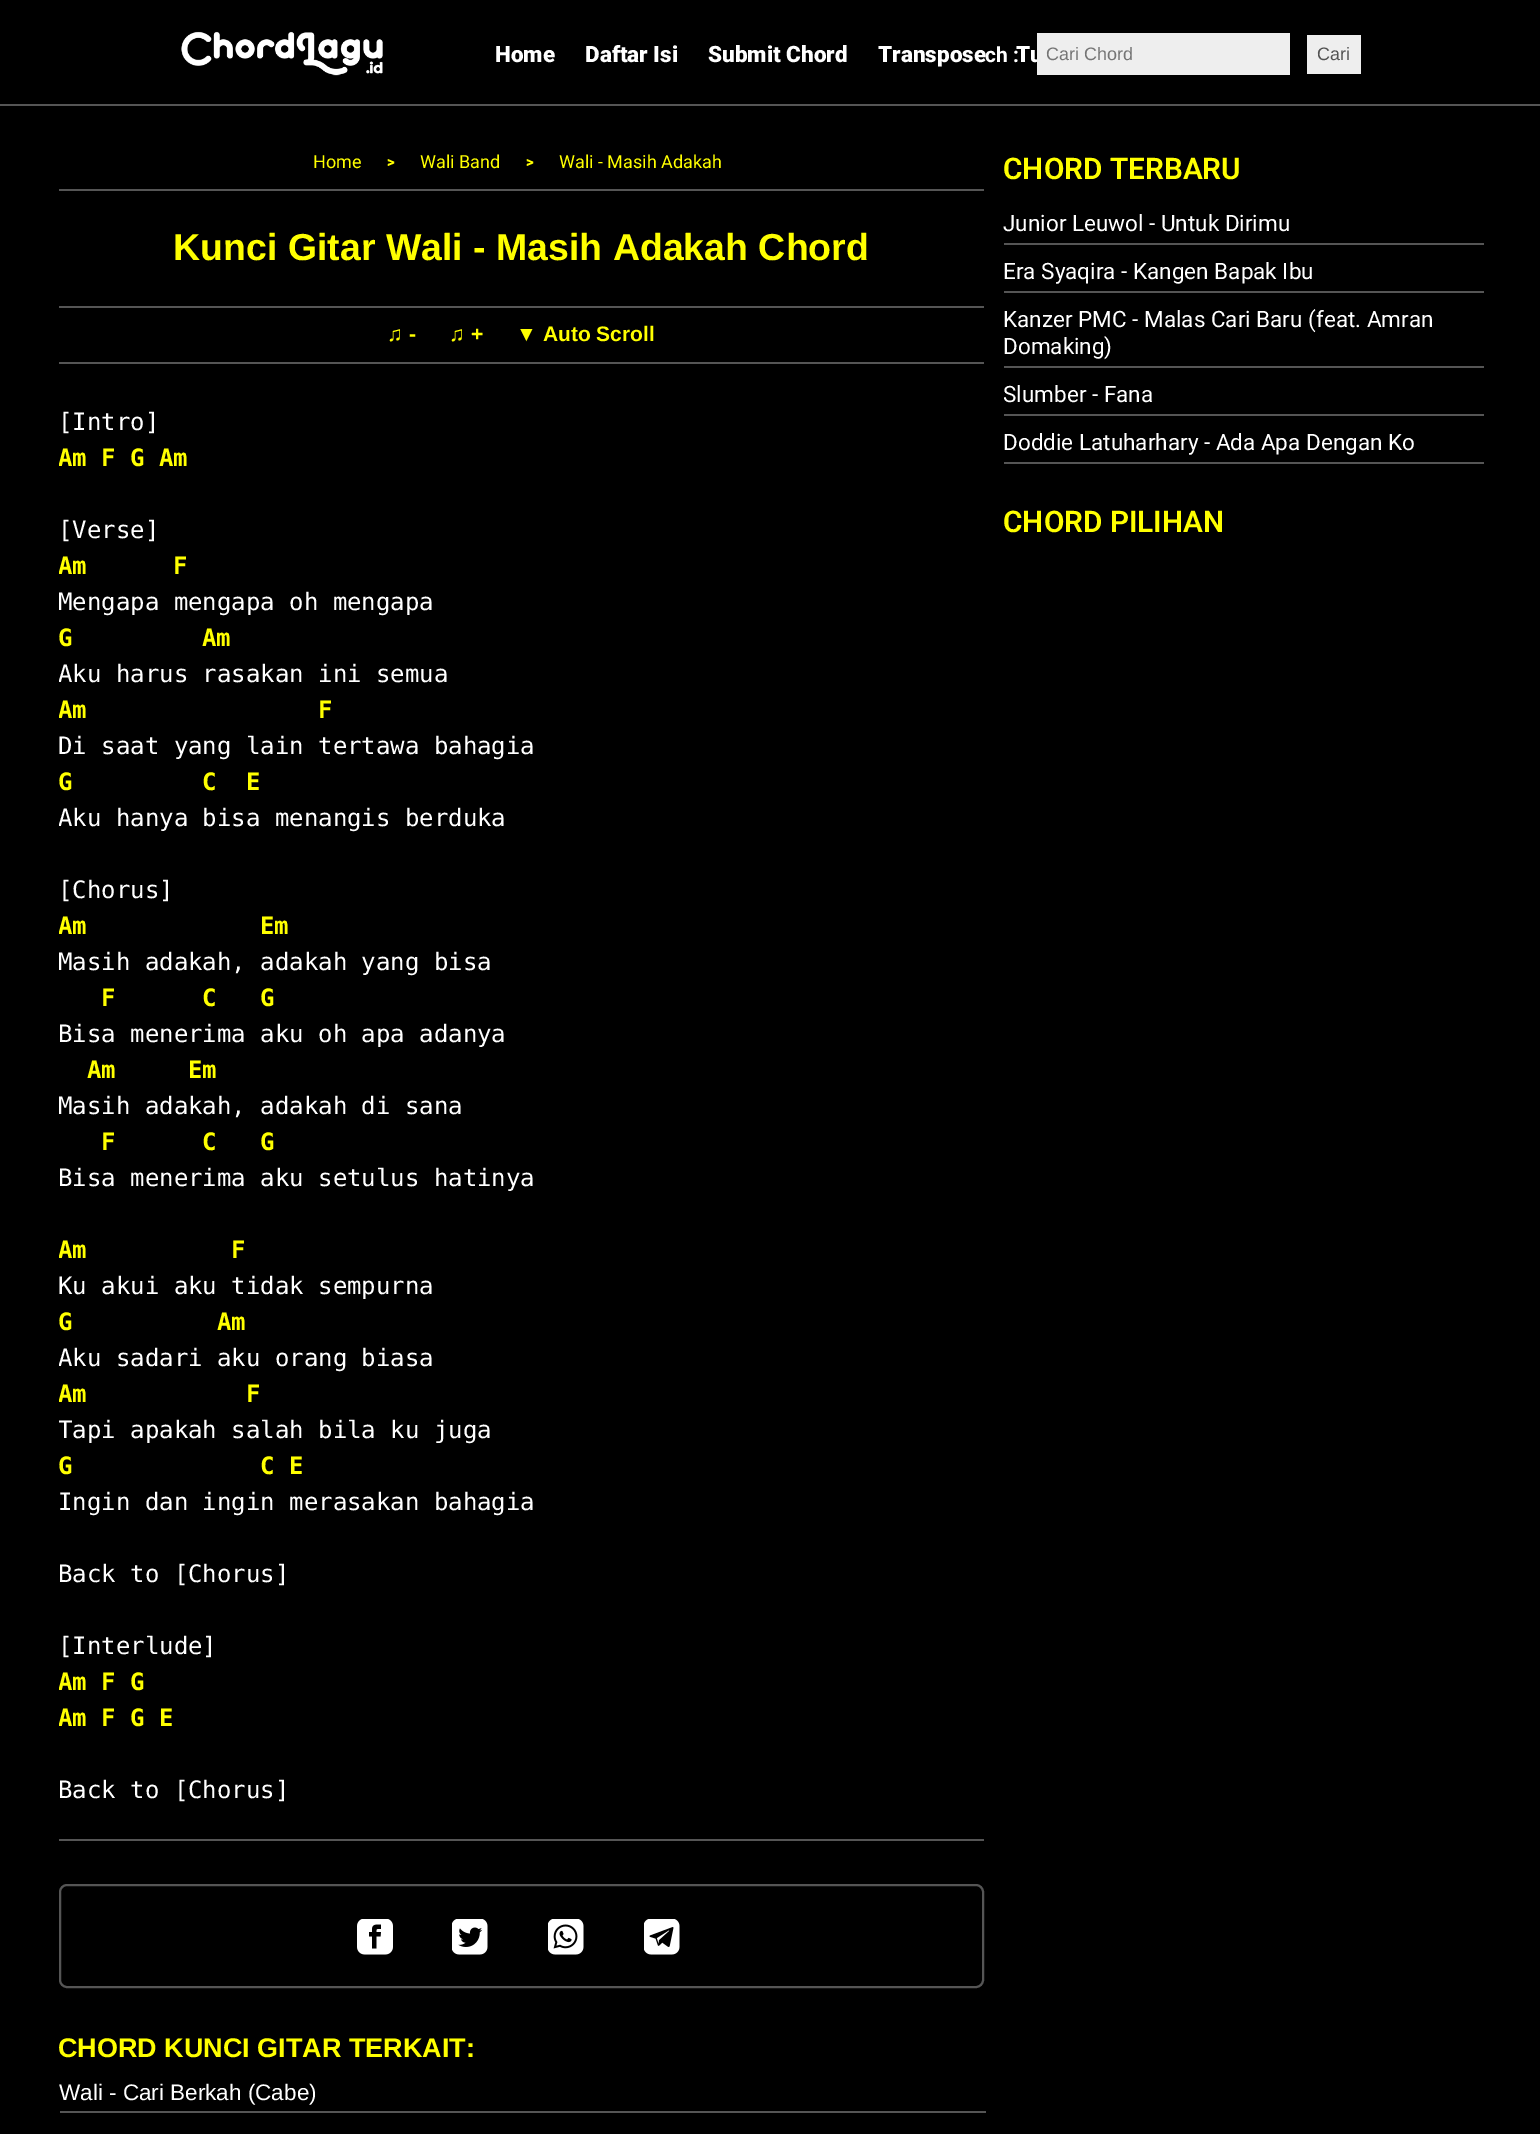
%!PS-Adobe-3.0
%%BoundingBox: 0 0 1540 2134
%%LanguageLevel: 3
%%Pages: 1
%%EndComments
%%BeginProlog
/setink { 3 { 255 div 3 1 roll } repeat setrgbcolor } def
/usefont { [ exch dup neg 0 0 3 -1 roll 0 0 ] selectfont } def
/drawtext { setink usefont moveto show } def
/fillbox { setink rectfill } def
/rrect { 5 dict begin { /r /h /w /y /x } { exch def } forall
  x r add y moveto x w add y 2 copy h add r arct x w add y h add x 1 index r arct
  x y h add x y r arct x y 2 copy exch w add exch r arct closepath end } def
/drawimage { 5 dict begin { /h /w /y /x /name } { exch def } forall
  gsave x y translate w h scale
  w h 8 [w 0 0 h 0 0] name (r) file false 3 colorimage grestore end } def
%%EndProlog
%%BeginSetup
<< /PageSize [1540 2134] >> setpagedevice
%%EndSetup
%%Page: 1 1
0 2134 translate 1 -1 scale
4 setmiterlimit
0 0 1540 2134 0 0 0 fillbox
(assets/img1.rgb) 181 31 202 45 drawimage
(Home) 495 62 /Roboto-Black 22.5 255 255 255 drawtext
(Daftar Isi) 585 62 /Roboto-Black 22.5 255 255 255 drawtext
(Submit Chord) 708 62 /Roboto-Black 22.5 255 255 255 drawtext
(Transpose) 878 62 /Roboto-Black 22.5 255 255 255 drawtext
(Tu) 1016 62 /Roboto-Black 22.5 255 255 255 drawtext
(ch :) 985 62 /Roboto-Bold 21 255 255 255 drawtext
1037 33 253 42 238 238 238 fillbox
(Cari Chord) 1046 60 /LiberationSans-Regular 18 117 117 117 drawtext
1307 35 54 39 238 238 238 fillbox
(Cari) 1317 60 /LiberationSans-Regular 18 83 83 83 drawtext
0 104 1540 2 85 85 85 fillbox
59 189 925 2 85 85 85 fillbox
(Home) 313 168 /Roboto-Regular 18 255 255 0 drawtext
(>) 387 167 /Roboto-Black 15 255 255 0 drawtext
(Wali Band) 420 168 /Roboto-Regular 18 255 255 0 drawtext
(>) 526 167 /Roboto-Black 15 255 255 0 drawtext
(Wali - Masih Adakah) 559 168 /Roboto-Regular 18 255 255 0 drawtext
(Kunci Gitar Wali - Masih Adakah Chord) 173 260 /LiberationSans-Bold 37.5 255 255 0 drawtext
59 306 925 2 85 85 85 fillbox
(♫ -) 387 341 /LiberationSans-Bold 21 255 255 0 drawtext
(♫ +) 449 341 /LiberationSans-Bold 21 255 255 0 drawtext
(▼ Auto Scroll) 516 341 /LiberationSans-Bold 21 255 255 0 drawtext
59 362 925 2 85 85 85 fillbox
([Intro]) 58 430 /DejaVuSansMono-Regular 24 255 255 255 drawtext
gsave
59 386 925 1441 rectclip
(Am) 58 466 /DejaVuSansMono-Bold 24 255 255 0 drawtext
grestore
(F G Am) 101 466 /DejaVuSansMono-Bold 24 255 255 0 drawtext
([Verse]) 58 538 /DejaVuSansMono-Regular 24 255 255 255 drawtext
gsave
59 386 925 1441 rectclip
(Am) 58 574 /DejaVuSansMono-Bold 24 255 255 0 drawtext
grestore
(F) 173 574 /DejaVuSansMono-Bold 24 255 255 0 drawtext
gsave
59 386 925 1441 rectclip
(Mengapa mengapa oh mengapa) 58 610 /DejaVuSansMono-Regular 24 255 255 255 drawtext
grestore
(G) 58 646 /DejaVuSansMono-Bold 24 255 255 0 drawtext
(Am) 202 646 /DejaVuSansMono-Bold 24 255 255 0 drawtext
gsave
59 386 925 1441 rectclip
(Aku harus rasakan ini semua) 58 682 /DejaVuSansMono-Regular 24 255 255 255 drawtext
(Am) 58 718 /DejaVuSansMono-Bold 24 255 255 0 drawtext
grestore
(F) 318 718 /DejaVuSansMono-Bold 24 255 255 0 drawtext
(Di saat yang lain tertawa bahagia) 58 754 /DejaVuSansMono-Regular 24 255 255 255 drawtext
(G) 58 790 /DejaVuSansMono-Bold 24 255 255 0 drawtext
(C) 202 790 /DejaVuSansMono-Bold 24 255 255 0 drawtext
(E) 246 790 /DejaVuSansMono-Bold 24 255 255 0 drawtext
gsave
59 386 925 1441 rectclip
(Aku hanya bisa menangis berduka) 58 826 /DejaVuSansMono-Regular 24 255 255 255 drawtext
grestore
([Chorus]) 58 898 /DejaVuSansMono-Regular 24 255 255 255 drawtext
gsave
59 386 925 1441 rectclip
(Am) 58 934 /DejaVuSansMono-Bold 24 255 255 0 drawtext
grestore
(Em) 260 934 /DejaVuSansMono-Bold 24 255 255 0 drawtext
gsave
59 386 925 1441 rectclip
(Masih adakah, adakah yang bisa) 58 970 /DejaVuSansMono-Regular 24 255 255 255 drawtext
grestore
(F) 101 1006 /DejaVuSansMono-Bold 24 255 255 0 drawtext
(C) 202 1006 /DejaVuSansMono-Bold 24 255 255 0 drawtext
(G) 260 1006 /DejaVuSansMono-Bold 24 255 255 0 drawtext
(Bisa menerima aku oh apa adanya) 58 1042 /DejaVuSansMono-Regular 24 255 255 255 drawtext
(Am) 87 1078 /DejaVuSansMono-Bold 24 255 255 0 drawtext
(Em) 188 1078 /DejaVuSansMono-Bold 24 255 255 0 drawtext
gsave
59 386 925 1441 rectclip
(Masih adakah, adakah di sana) 58 1114 /DejaVuSansMono-Regular 24 255 255 255 drawtext
grestore
(F) 101 1150 /DejaVuSansMono-Bold 24 255 255 0 drawtext
(C) 202 1150 /DejaVuSansMono-Bold 24 255 255 0 drawtext
(G) 260 1150 /DejaVuSansMono-Bold 24 255 255 0 drawtext
(Bisa menerima aku setulus hatinya) 58 1186 /DejaVuSansMono-Regular 24 255 255 255 drawtext
gsave
59 386 925 1441 rectclip
(Am) 58 1258 /DejaVuSansMono-Bold 24 255 255 0 drawtext
grestore
(F) 231 1258 /DejaVuSansMono-Bold 24 255 255 0 drawtext
(Ku akui aku tidak sempurna) 58 1294 /DejaVuSansMono-Regular 24 255 255 255 drawtext
(G) 58 1330 /DejaVuSansMono-Bold 24 255 255 0 drawtext
(Am) 217 1330 /DejaVuSansMono-Bold 24 255 255 0 drawtext
gsave
59 386 925 1441 rectclip
(Aku sadari aku orang biasa) 58 1366 /DejaVuSansMono-Regular 24 255 255 255 drawtext
(Am) 58 1402 /DejaVuSansMono-Bold 24 255 255 0 drawtext
grestore
(F) 246 1402 /DejaVuSansMono-Bold 24 255 255 0 drawtext
gsave
59 386 925 1441 rectclip
(Tapi apakah salah bila ku juga) 58 1438 /DejaVuSansMono-Regular 24 255 255 255 drawtext
grestore
(G) 58 1474 /DejaVuSansMono-Bold 24 255 255 0 drawtext
(C E) 260 1474 /DejaVuSansMono-Bold 24 255 255 0 drawtext
(Ingin dan ingin merasakan bahagia) 58 1510 /DejaVuSansMono-Regular 24 255 255 255 drawtext
(Back to [Chorus]) 58 1582 /DejaVuSansMono-Regular 24 255 255 255 drawtext
([Interlude]) 58 1654 /DejaVuSansMono-Regular 24 255 255 255 drawtext
gsave
59 386 925 1441 rectclip
(Am) 58 1690 /DejaVuSansMono-Bold 24 255 255 0 drawtext
grestore
(F G) 101 1690 /DejaVuSansMono-Bold 24 255 255 0 drawtext
gsave
59 386 925 1441 rectclip
(Am) 58 1726 /DejaVuSansMono-Bold 24 255 255 0 drawtext
grestore
(F G E) 101 1726 /DejaVuSansMono-Bold 24 255 255 0 drawtext
(Back to [Chorus]) 58 1798 /DejaVuSansMono-Regular 24 255 255 255 drawtext
59 1839 925 2 85 85 85 fillbox
2 setlinewidth
60 1885 923 102 7 rrect stroke
(assets/img2.rgb) 357 1919 36 36 drawimage
(assets/img3.rgb) 452 1919 36 36 drawimage
(assets/img4.rgb) 548 1919 36 36 drawimage
(assets/img5.rgb) 644 1919 36 36 drawimage
gsave
59 143 1425 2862 rectclip
(CHORD KUNCI GITAR TERKAIT:) 58 2057 /LiberationSans-Bold 27 255 255 0 drawtext
grestore
60 2111 926 2 85 85 85 fillbox
(Wali - Cari Berkah \(Cabe\)) 59 2100 /LiberationSans-Regular 22.5 255 255 255 drawtext
(CHORD TERBARU) 1003 179 /Roboto-SemiBold 29.75 255 255 0 drawtext
1004 243 480 2 85 85 85 fillbox
(Junior Leuwol - Untuk Dirimu) 1003 231 /Roboto-Regular 22.5 255 255 255 drawtext
1004 291 480 2 85 85 85 fillbox
(Era Syaqira - Kangen Bapak Ibu) 1003 279 /Roboto-Regular 22.5 255 255 255 drawtext
1004 366 480 2 85 85 85 fillbox
(Kanzer PMC - Malas Cari Baru \(feat. Amran) 1003 327 /Roboto-Regular 22.5 255 255 255 drawtext
(Domaking\)) 1003 354 /Roboto-Regular 22.5 255 255 255 drawtext
1004 414 480 2 85 85 85 fillbox
(Slumber - Fana) 1003 402 /Roboto-Regular 22.5 255 255 255 drawtext
1004 462 480 2 85 85 85 fillbox
(Doddie Latuharhary - Ada Apa Dengan Ko) 1003 450 /Roboto-Regular 22.5 255 255 255 drawtext
(CHORD PILIHAN) 1003 532 /Roboto-SemiBold 29.75 255 255 0 drawtext
showpage
%%EOF
